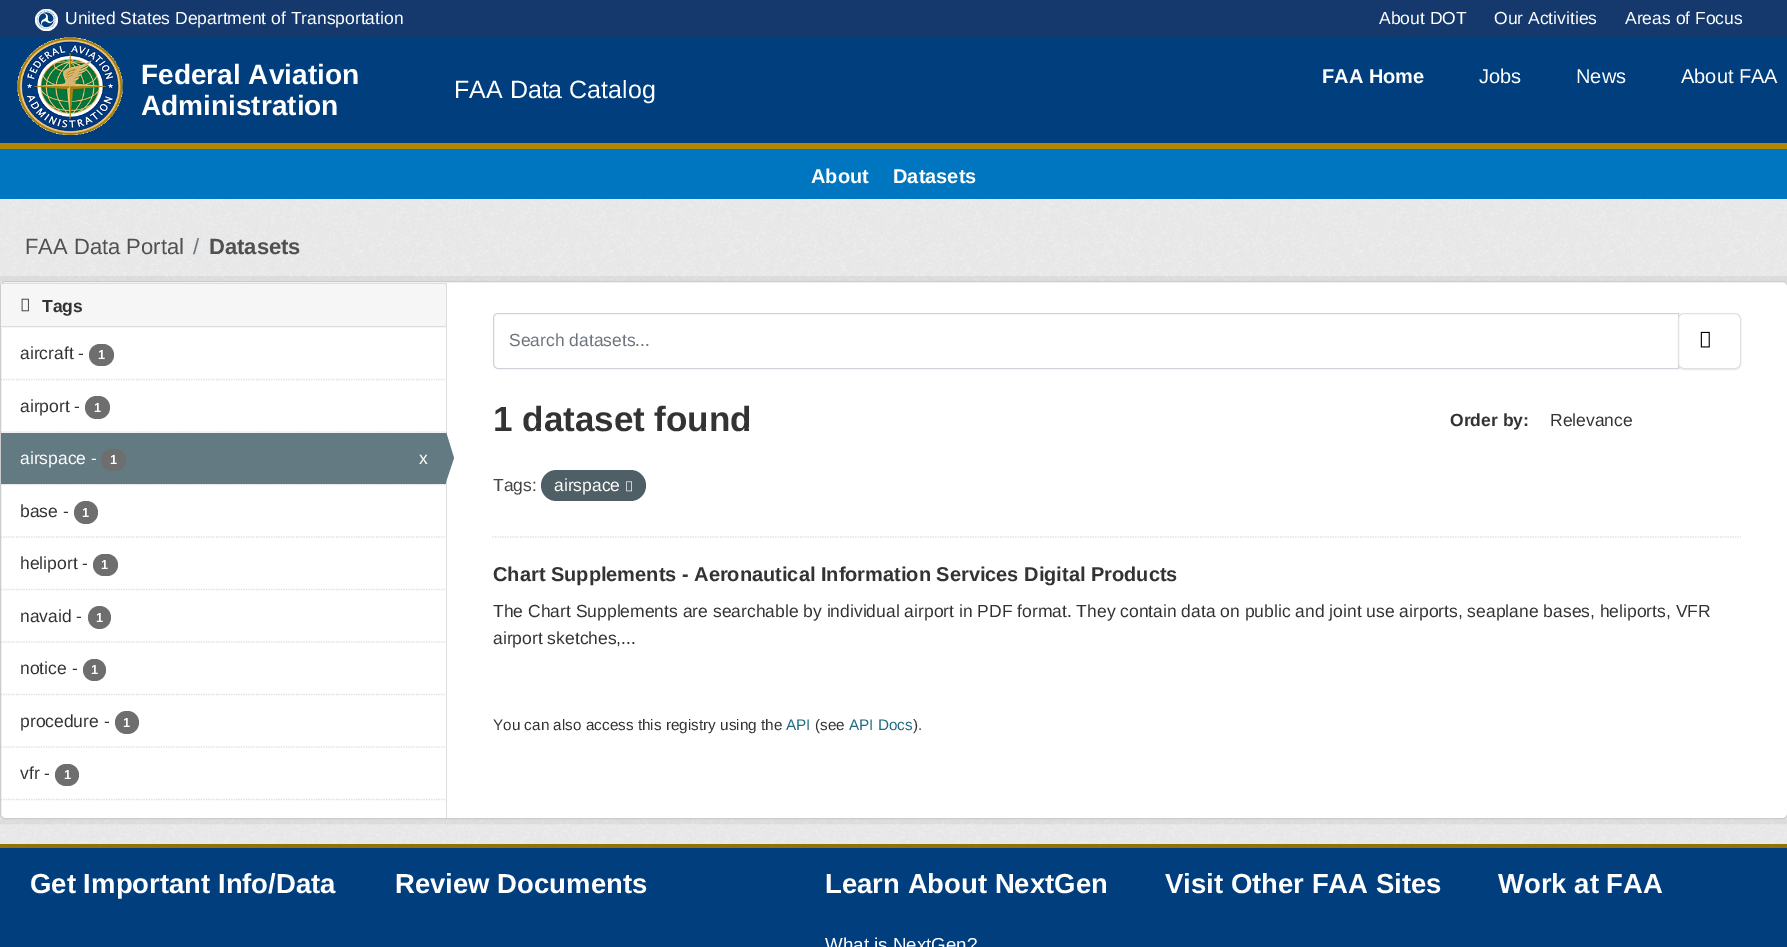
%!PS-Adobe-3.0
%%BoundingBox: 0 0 1787 947
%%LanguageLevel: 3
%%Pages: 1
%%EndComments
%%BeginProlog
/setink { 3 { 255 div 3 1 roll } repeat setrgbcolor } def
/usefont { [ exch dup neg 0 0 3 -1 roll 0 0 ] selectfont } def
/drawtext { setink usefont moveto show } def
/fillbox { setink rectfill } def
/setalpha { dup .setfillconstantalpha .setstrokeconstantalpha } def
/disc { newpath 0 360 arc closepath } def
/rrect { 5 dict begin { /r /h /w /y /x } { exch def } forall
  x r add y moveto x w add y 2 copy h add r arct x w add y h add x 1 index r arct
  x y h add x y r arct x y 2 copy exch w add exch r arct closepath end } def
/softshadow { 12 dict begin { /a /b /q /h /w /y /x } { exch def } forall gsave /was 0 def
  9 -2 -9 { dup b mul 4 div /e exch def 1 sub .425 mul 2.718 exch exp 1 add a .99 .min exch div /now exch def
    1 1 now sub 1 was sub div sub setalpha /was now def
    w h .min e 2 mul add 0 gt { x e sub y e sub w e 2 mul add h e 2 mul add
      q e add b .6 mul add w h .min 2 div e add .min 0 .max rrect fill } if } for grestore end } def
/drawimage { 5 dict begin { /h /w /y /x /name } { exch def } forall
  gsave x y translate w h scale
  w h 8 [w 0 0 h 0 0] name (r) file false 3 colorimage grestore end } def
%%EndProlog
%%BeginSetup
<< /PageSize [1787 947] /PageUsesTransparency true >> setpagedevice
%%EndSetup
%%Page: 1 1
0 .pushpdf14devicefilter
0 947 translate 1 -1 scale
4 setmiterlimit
0 0 1787 947 21 57 108 fillbox
255 255 255 setink
35 9 23 22 11 rrect fill
(assets/img1.rgb) 36 10 20 20 drawimage
(United States Department of Transportation) 65 24 /LiberationSans-Regular 17.5 255 255 255 drawtext
(About DOT) 1379 24 /LiberationSans-Regular 17.5 255 255 255 drawtext
(Our Activities) 1494 24 /LiberationSans-Regular 17.5 255 255 255 drawtext
(Areas of Focus) 1625 24 /LiberationSans-Regular 17.5 255 255 255 drawtext
0 38 1787 105 0 62 126 fillbox
0 143 1787 6 178 135 6 fillbox
(assets/img2.rgb) 17 37 106 98 drawimage
(Federal Aviation) 141 84 /LiberationSans-Bold 28 255 255 255 drawtext
(Administration) 141 115 /LiberationSans-Bold 28 255 255 255 drawtext
(FAA Home) 1322 83 /LiberationSans-Bold 20 255 255 255 drawtext
(Jobs) 1479 83 /LiberationSans-Regular 20 255 255 255 drawtext
(News) 1576 83 /LiberationSans-Regular 20 255 255 255 drawtext
(About FAA) 1681 83 /LiberationSans-Regular 20 255 255 255 drawtext
(FAA Data Catalog) 454 98 /LiberationSans-Regular 25 255 255 255 drawtext
0 149 1787 50 0 118 192 fillbox
(About) 811 183 /LiberationSans-Bold 20 255 255 255 drawtext
(Datasets) 893 183 /LiberationSans-Bold 20 255 255 255 drawtext
0 199 1787 645 238 238 238 fillbox
(assets/img3.rgb) 0 199 1787 645 drawimage
(FAA Data Portal) 25 254 /LiberationSans-Regular 22 80 80 80 drawtext
(/) 193 254 /LiberationSans-Regular 22 108 117 125 drawtext
(Datasets) 209 254 /LiberationSans-Bold 22 80 80 80 drawtext
0.05 setalpha
0 0 0 setink
5 setlinewidth
-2.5 278.5 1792 543 rectstroke
1 setalpha
255 255 255 setink
0.5 281.5 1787 537 4.5 rrect gsave fill grestore
204 204 204 setink
1 setlinewidth
stroke
1 284 445 44 246 246 246 fillbox
1 283 445 1 221 221 221 fillbox
1 326 445 1 221 221 221 fillbox
(assets/img4.rgb) 21 298 8 14 drawimage
(Tags) 42 312 /LiberationSans-Bold 17.5 51 51 51 drawtext
221 221 221 setink
1.2 setlinewidth
[1.25 1.25] 0 setdash
1 379.5 moveto 446 379.5 lineto stroke
(aircraft -) 20 359 /LiberationSans-Regular 17.5 51 51 51 drawtext
110 110 110 setink
89 344 25 22 11 rrect fill
(1) 98 359 /LiberationSans-Bold 13 255 255 255 drawtext
221 221 221 setink
1 432 moveto 446 432 lineto stroke
(airport -) 20 412 /LiberationSans-Regular 17.5 51 51 51 drawtext
110 110 110 setink
85 396 25 23 11.5 rrect fill
(1) 94 412 /LiberationSans-Bold 13 255 255 255 drawtext
2 484 444 1 246 246 246 fillbox
221 221 221 setink
1 484.5 moveto 446 484.5 lineto stroke
1 433 445 51 100 122 130 fillbox
(airspace -) 20 464 /LiberationSans-Regular 17.5 255 255 255 drawtext
110 110 110 setink
101 449 25 22 11 rrect fill
(1) 110 464 /LiberationSans-Bold 13 255 255 255 drawtext
(x) 419 464 /LiberationSans-Regular 17.5 255 255 255 drawtext
446 283 1 535 221 221 221 fillbox
100 122 130 setink
446 482 moveto 446 432 lineto 454 458 lineto closepath fill
221 221 221 setink
1 537 moveto 446 537 lineto stroke
(base -) 20 517 /LiberationSans-Regular 17.5 51 51 51 drawtext
110 110 110 setink
74 501 24 23 11.5 rrect fill
(1) 82 517 /LiberationSans-Bold 13 255 255 255 drawtext
221 221 221 setink
1 589.5 moveto 446 589.5 lineto stroke
(heliport -) 20 569 /LiberationSans-Regular 17.5 51 51 51 drawtext
110 110 110 setink
93 554 25 22 11 rrect fill
(1) 101 569 /LiberationSans-Bold 13 255 255 255 drawtext
221 221 221 setink
1 642 moveto 446 642 lineto stroke
(navaid -) 20 622 /LiberationSans-Regular 17.5 51 51 51 drawtext
110 110 110 setink
99.5 617.5 11.5 disc fill
(1) 96 622 /LiberationSans-Bold 13 255 255 255 drawtext
221 221 221 setink
1 694.5 moveto 446 694.5 lineto stroke
(notice -) 20 674 /LiberationSans-Regular 17.5 51 51 51 drawtext
110 110 110 setink
83 659 23 22 11 rrect fill
(1) 91 674 /LiberationSans-Bold 13 255 255 255 drawtext
221 221 221 setink
1 747 moveto 446 747 lineto stroke
(procedure -) 20 727 /LiberationSans-Regular 17.5 51 51 51 drawtext
110 110 110 setink
115 711 24 23 11.5 rrect fill
(1) 123 727 /LiberationSans-Bold 13 255 255 255 drawtext
(vfr -) 20 779 /LiberationSans-Regular 17.5 51 51 51 drawtext
110 110 110 setink
55 764 24 22 11 rrect fill
(1) 64 779 /LiberationSans-Bold 13 255 255 255 drawtext
221 221 221 setink
1 799.5 moveto 446 799.5 lineto stroke
492.5 537 moveto 1741 537 lineto stroke
206 212 218 setink
1 setlinewidth
[] 0 setdash
498 313.5 moveto 1678.5 313.5 lineto 1678.5 368.5 lineto 498 368.5 lineto 495.5 368.5 493.5 366.5 493.5 364 curveto 493.5 318 lineto 493.5 315.5 495.5 313.5 498 313.5 curveto closepath stroke
(Search datasets...) 509 346 /LiberationSans-Regular 17.5 108 117 125 drawtext
0 0 0 setink
1678 314 63 56 6 0.5 0.07 softshadow
255 255 255 setink
1678.5 313.5 62 55 5.5 rrect gsave fill grestore
222 226 230 setink
stroke
(assets/img5.rgb) 1700 331 10 17 drawimage
(1 dataset found) 493 431 /LiberationSans-Bold 35 51 51 51 drawtext
(Order by:) 1450 426 /LiberationSans-Bold 17.5 51 51 51 drawtext
(Relevance) 1550 426 /LiberationSans-Regular 17.5 51 51 51 drawtext
(Tags:) 493 491 /LiberationSans-Regular 17.5 68 68 68 drawtext
78 95 101 setink
541 470 105 31 15.5 rrect fill
(airspace) 554 491 /LiberationSans-Regular 17.5 255 255 255 drawtext
(assets/img6.rgb) 626 481 6 11 drawimage
(Chart Supplements - Aeronautical Information Services Digital Products) 493 581 /LiberationSans-Bold 20 51 51 51 drawtext
(The Chart Supplements are searchable by individual airport in PDF format. They contain data on public and joint use airports, seaplane bases, heliports, VFR) 493 617 /LiberationSans-Regular 17.5 51 51 51 drawtext
(airport sketches,...) 493 644 /LiberationSans-Regular 17.5 51 51 51 drawtext
(You can also access this registry using the) 493 730 /LiberationSans-Regular 15.3 51 51 51 drawtext
(API) 786 730 /LiberationSans-Regular 15.3 32 107 130 drawtext
(\(see) 815 730 /LiberationSans-Regular 15.3 51 51 51 drawtext
(API Docs) 849 730 /LiberationSans-Regular 15.3 32 107 130 drawtext
(\).) 913 730 /LiberationSans-Regular 15.3 51 51 51 drawtext
0 848 1787 99 0 62 126 fillbox
0 844 1787 4 147 114 6 fillbox
(Get Important Info/Data) 30 893 /LiberationSans-Bold 27.5 255 255 255 drawtext
(Review Documents) 395 893 /LiberationSans-Bold 27.5 255 255 255 drawtext
(Learn About NextGen) 825 893 /LiberationSans-Bold 27.5 255 255 255 drawtext
(What is NextGen?) 825 951 /LiberationSans-Regular 18.75 255 255 255 drawtext
(Visit Other FAA Sites) 1165 893 /LiberationSans-Bold 27.5 255 255 255 drawtext
(Work at FAA) 1498 893 /LiberationSans-Bold 27.5 255 255 255 drawtext
.poppdf14devicefilter showpage
%%EOF
